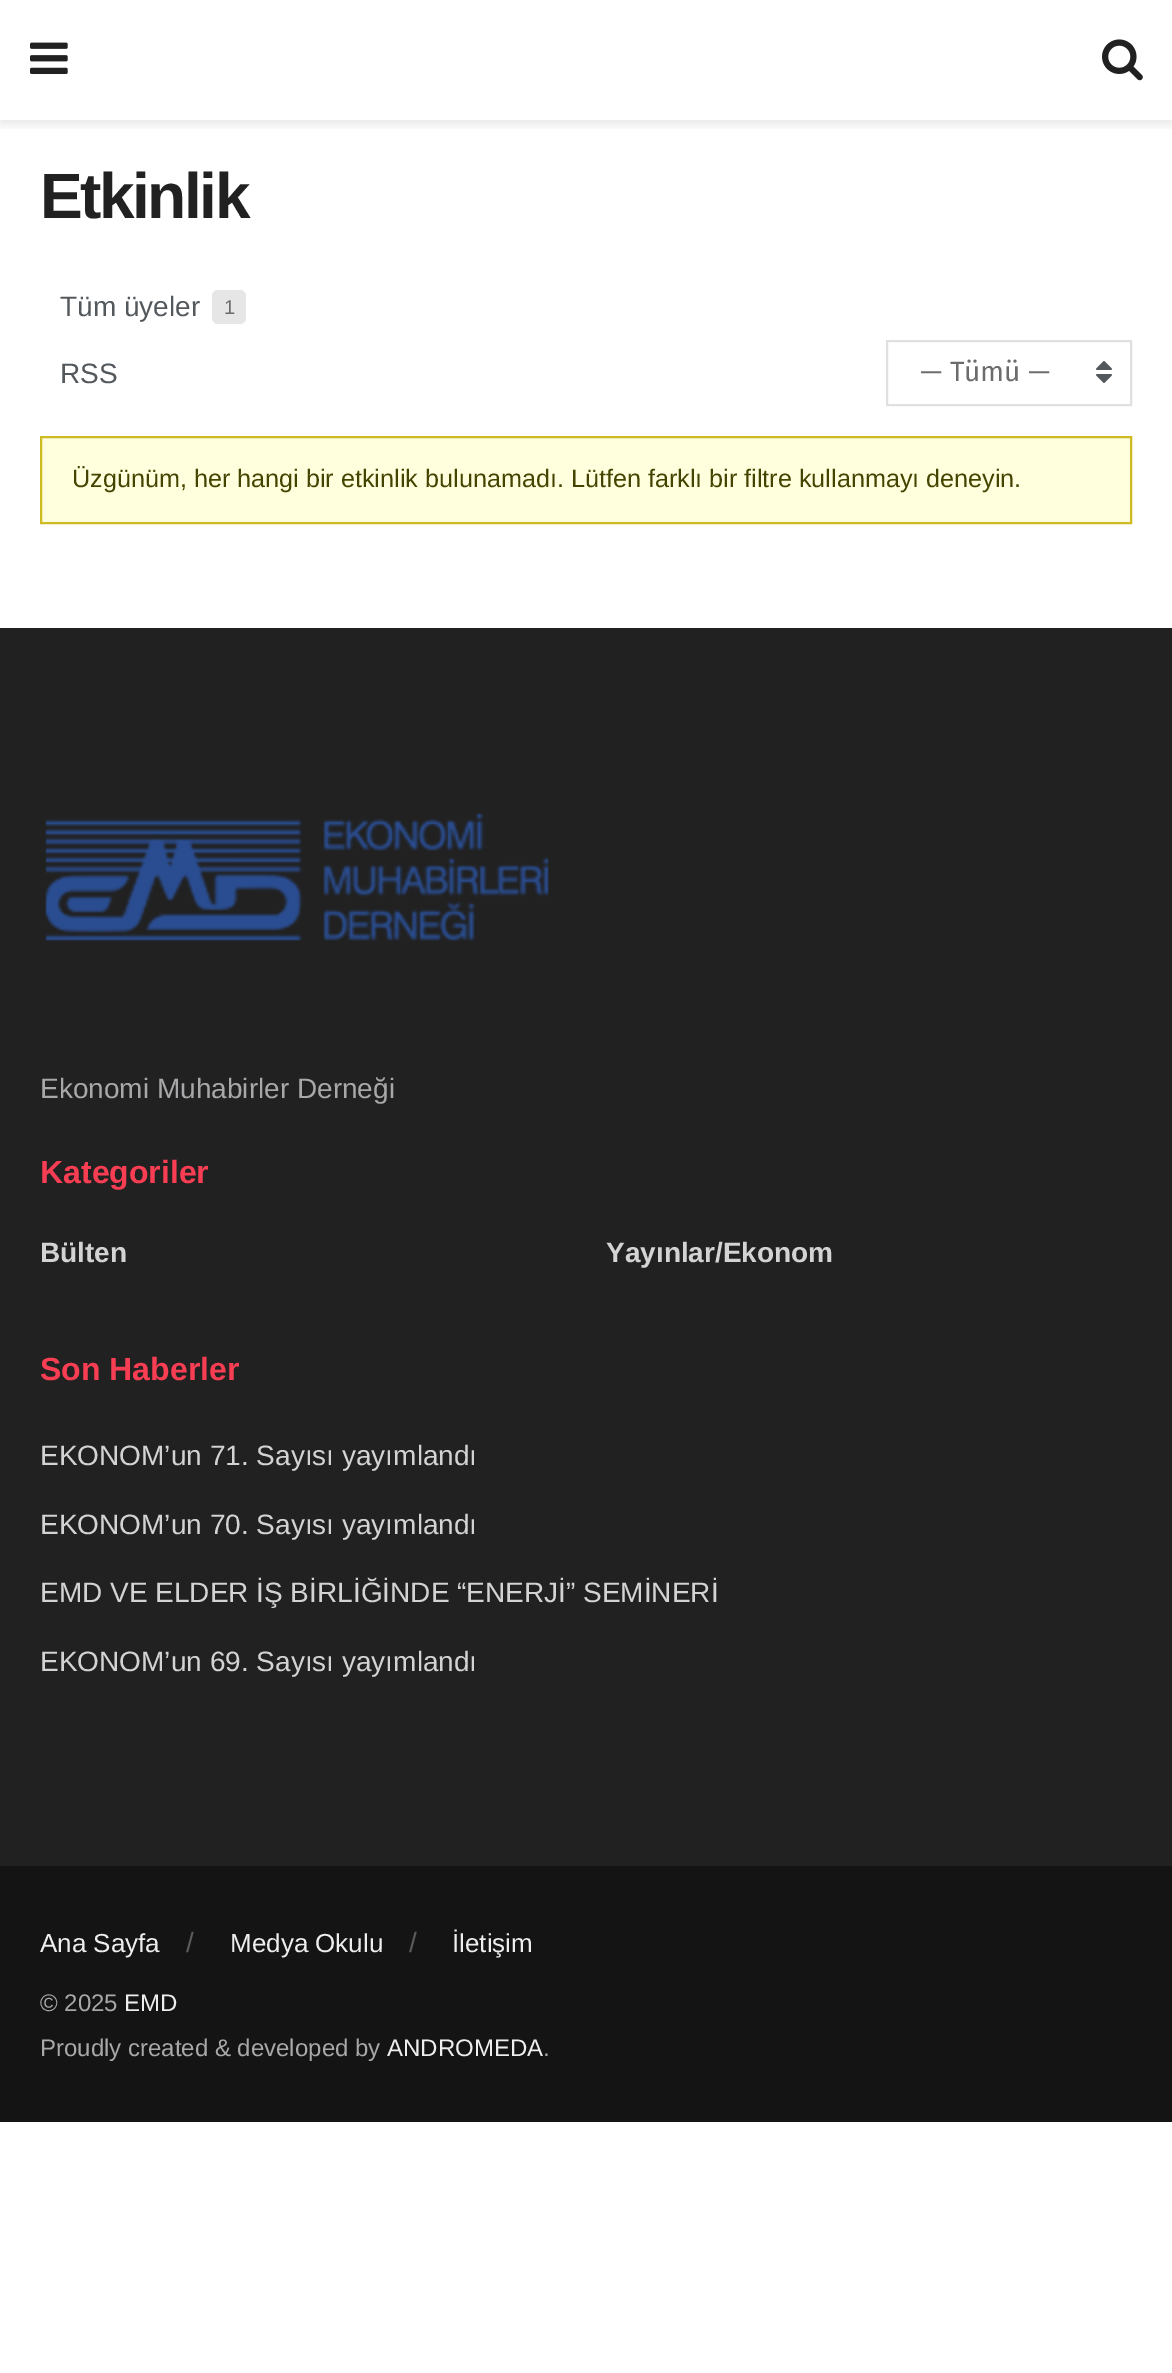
%!PS-Adobe-3.0
%%BoundingBox: 0 0 1172 2373
%%LanguageLevel: 3
%%Pages: 1
%%EndComments
%%BeginProlog
/setink { 3 { 255 div 3 1 roll } repeat setrgbcolor } def
/usefont { [ exch dup neg 0 0 3 -1 roll 0 0 ] selectfont } def
/drawtext { setink usefont moveto show } def
/fillbox { setink rectfill } def
/setalpha { dup .setfillconstantalpha .setstrokeconstantalpha } def
/rrect { 5 dict begin { /r /h /w /y /x } { exch def } forall
  x r add y moveto x w add y 2 copy h add r arct x w add y h add x 1 index r arct
  x y h add x y r arct x y 2 copy exch w add exch r arct closepath end } def
/softshadow { 12 dict begin { /a /b /q /h /w /y /x } { exch def } forall gsave /was 0 def
  9 -2 -9 { dup b mul 4 div /e exch def 1 sub .425 mul 2.718 exch exp 1 add a .99 .min exch div /now exch def
    1 1 now sub 1 was sub div sub setalpha /was now def
    w h .min e 2 mul add 0 gt { x e sub y e sub w e 2 mul add h e 2 mul add
      q e add b .6 mul add w h .min 2 div e add .min 0 .max rrect fill } if } for grestore end } def
/drawimage { 5 dict begin { /h /w /y /x /name } { exch def } forall
  gsave x y translate w h scale
  w h 8 [w 0 0 h 0 0] name (r) file false 3 colorimage grestore end } def
%%EndProlog
%%BeginSetup
<< /PageSize [1172 2373] /PageUsesTransparency true >> setpagedevice
%%EndSetup
%%Page: 1 1
0 .pushpdf14devicefilter
0 2373 translate 1 -1 scale
4 setmiterlimit
0 0 1172 2373 255 255 255 fillbox
gsave
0 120 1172 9 rectclip
0 0 0 setink
0 4 1172 120 0 6 0.1 softshadow
grestore
(assets/img1.rgb) 30 42 38 32 drawimage
(assets/img2.rgb) 1102 39 41 42 drawimage
/LiberationSans-Bold 64 usefont
33 33 33 setink
40 218 moveto -2.5 0 (Etkinlik) ashow
(Tüm üyeler) 60 316 /LiberationSans-Regular 28 83 88 92 drawtext
230 230 230 setink
212 290 34 34 6 rrect fill
(1) 224 314 /LiberationSans-Regular 20 108 108 108 drawtext
(RSS) 60 383 /LiberationSans-Regular 28 83 88 92 drawtext
224 224 224 setink
2 setlinewidth
887 341 244 64 rectstroke
(— Tümü —) 920 381 /FiraSans-Regular 28 108 108 108 drawtext
(assets/img3.rgb) 1096 361 16 22 drawimage
255 255 221 setink
41 437 moveto 1131 437 lineto 1131 523 lineto 41 523 lineto closepath gsave fill grestore
204 187 34 setink
stroke
(Üzgünüm, her hangi bir etkinlik bulunamadı. Lütfen farklı bir filtre kullanmayı deneyin.) 72 487 /LiberationSans-Regular 25.2 68 68 0 drawtext
0 628 1172 1238 33 33 33 fillbox
(assets/img4.rgb) 45 813 504 128 drawimage
(Ekonomi Muhabirler Derneği) 40 1098 /LiberationSans-Regular 28 168 168 170 drawtext
(Kategoriler) 40 1183 /LiberationSans-Bold 32 249 61 83 drawtext
(Bülten) 40 1262 /LiberationSans-Bold 28 211 211 211 drawtext
(Yayınlar/Ekonom) 606 1262 /LiberationSans-Bold 28 211 211 211 drawtext
(Son Haberler) 40 1380 /LiberationSans-Bold 32 249 61 83 drawtext
(EKONOM’un 71. Sayısı yayımlandı) 40 1465 /LiberationSans-Regular 28 211 211 211 drawtext
(EKONOM’un 70. Sayısı yayımlandı) 40 1534 /LiberationSans-Regular 28 211 211 211 drawtext
(EMD VE ELDER İŞ BİRLİĞİNDE “ENERJİ” SEMİNERİ) 40 1602 /LiberationSans-Regular 28 211 211 211 drawtext
(EKONOM’un 69. Sayısı yayımlandı) 40 1671 /LiberationSans-Regular 28 211 211 211 drawtext
0 1866 1172 256 20 20 20 fillbox
(Ana Sayfa) 40 1952 /LiberationSans-Regular 26 238 238 238 drawtext
(/) 186 1952 /LiberationSans-Regular 28 91 91 91 drawtext
(Medya Okulu) 230 1952 /LiberationSans-Regular 26 238 238 238 drawtext
(/) 409 1952 /LiberationSans-Regular 28 91 91 91 drawtext
(İletişim) 452 1952 /LiberationSans-Regular 26 238 238 238 drawtext
(© 2025) 40 2011 /LiberationSans-Regular 24 168 168 170 drawtext
(EMD) 124 2011 /LiberationSans-Regular 24 238 238 238 drawtext
(Proudly created & developed by) 40 2056 /LiberationSans-Regular 24 168 168 170 drawtext
(ANDROMEDA) 387 2056 /LiberationSans-Regular 24 238 238 238 drawtext
(.) 543 2056 /LiberationSans-Regular 24 168 168 170 drawtext
.poppdf14devicefilter showpage
%%EOF
